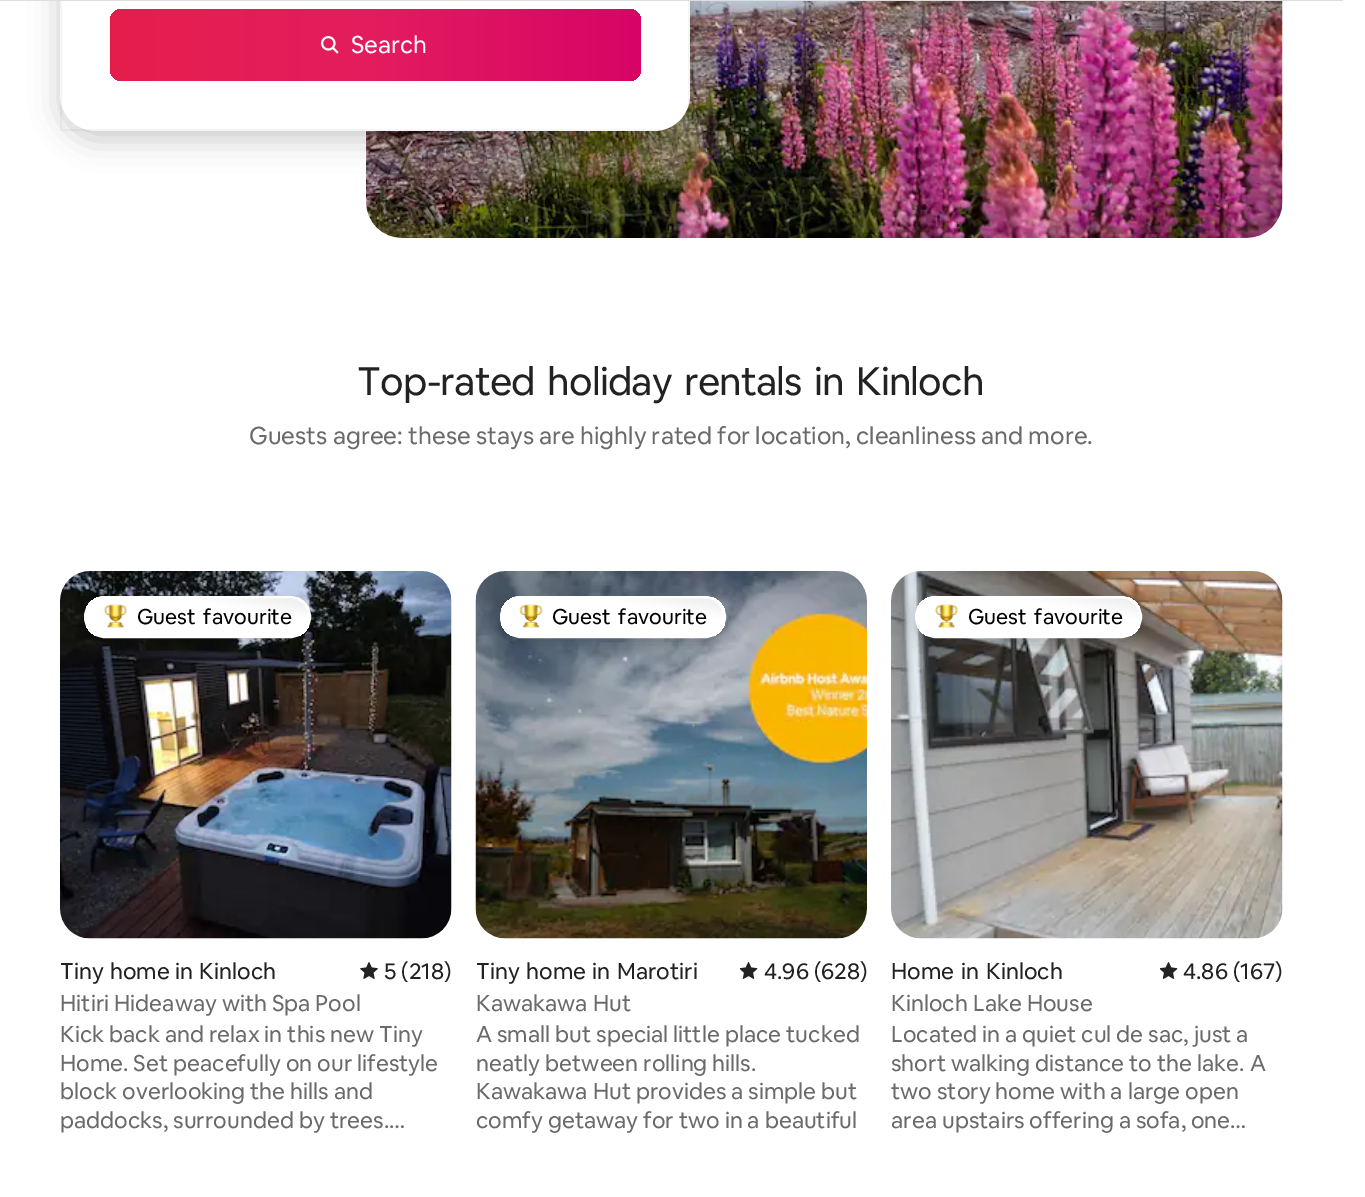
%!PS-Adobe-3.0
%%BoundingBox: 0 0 1365 1197
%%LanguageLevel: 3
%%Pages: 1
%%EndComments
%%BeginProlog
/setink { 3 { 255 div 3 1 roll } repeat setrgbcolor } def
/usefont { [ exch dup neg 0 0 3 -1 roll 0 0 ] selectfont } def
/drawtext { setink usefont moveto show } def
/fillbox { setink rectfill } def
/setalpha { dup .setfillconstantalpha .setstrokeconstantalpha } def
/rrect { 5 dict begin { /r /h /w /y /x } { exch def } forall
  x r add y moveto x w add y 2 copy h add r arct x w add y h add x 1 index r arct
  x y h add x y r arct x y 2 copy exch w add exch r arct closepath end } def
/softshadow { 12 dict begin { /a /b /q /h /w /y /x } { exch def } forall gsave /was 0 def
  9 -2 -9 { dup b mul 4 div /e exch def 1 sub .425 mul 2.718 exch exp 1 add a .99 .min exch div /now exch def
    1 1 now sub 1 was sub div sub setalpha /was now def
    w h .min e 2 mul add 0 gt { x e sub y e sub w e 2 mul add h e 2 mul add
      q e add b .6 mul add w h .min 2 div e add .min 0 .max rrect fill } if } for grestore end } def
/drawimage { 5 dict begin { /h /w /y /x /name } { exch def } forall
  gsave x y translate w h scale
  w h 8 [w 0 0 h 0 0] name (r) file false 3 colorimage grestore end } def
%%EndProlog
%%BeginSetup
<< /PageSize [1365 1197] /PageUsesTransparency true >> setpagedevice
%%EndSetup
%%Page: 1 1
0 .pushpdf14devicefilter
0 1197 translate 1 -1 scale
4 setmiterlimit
0 0 1365 1197 255 255 255 fillbox
(assets/img1.rgb) 366 1 917 237 drawimage
0 0 0 setink
60 -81 630 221 36 15 0.2 softshadow
255 255 255 setink
60 -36 630 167 36 rrect fill
0.04 setalpha
0 0 0 setink
2 setlinewidth
61 -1 628 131 rectstroke
1 setalpha
0 0 1343 1 221 221 221 fillbox
gsave 110 9 531 72 12 rrect clip newpath
<< /ShadingType 2 /ColorSpace /DeviceRGB /Coords [110 45 641 45] /Extend [true true] /Function << /FunctionType 3 /Domain [0 1] /Functions [<< /FunctionType 2 /Domain [0 1] /C0 [0.902 0.118 0.302] /C1 [0.89 0.11 0.373] /N 1 >> << /FunctionType 2 /Domain [0 1] /C0 [0.89 0.11 0.373] /C1 [0.843 0.016 0.4] /N 1 >>] /Bounds [0.5] /Encode [0 1 0 1] >> >> shfill grestore
(assets/img2.rgb) 321 36 18 18 drawimage
(Search) 351 53 /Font-Regular 24 255 255 255 drawtext
/Font-Regular 39 usefont
34 34 34 setink
357 395 moveto 4.5 0 32 -0.8 0 (Top-rated holiday rentals in Kinloch) awidthshow
(Guests agree: these stays are highly rated for location, cleanliness and more.) 249 444 /Font-Regular 24 106 106 106 drawtext
(assets/img3.rgb) 60 571 392 368 drawimage
0 0 0 setink
84 602 227 42 21 7.5 0.16 softshadow
gsave
84 596 227 42 21 rrect clip newpath
gsave 86 597 moveto 309 597 lineto 309 636 lineto 86 636 lineto closepath clip newpath
<< /ShadingType 2 /ColorSpace /DeviceRGB /Coords [191 654 204 579] /Extend [true true] /Function << /FunctionType 3 /Domain [0 1] /Functions [<< /FunctionType 2 /Domain [0 1] /C0 [0.945 0.945 0.945] /C1 [1 1 1] /N 1 >> << /FunctionType 2 /Domain [0 1] /C0 [1 1 1] /C1 [1 1 1] /N 1 >> << /FunctionType 2 /Domain [0 1] /C0 [1 1 1] /C1 [0.937 0.937 0.937] /N 1 >> << /FunctionType 2 /Domain [0 1] /C0 [0.937 0.937 0.937] /C1 [0.937 0.937 0.937] /N 1 >>] /Bounds [0.11 0.7 0.94] /Encode [0 1 0 1 0 1 0 1] >> >> shfill grestore
grestore
255 255 255 setink
85 597 225 40 20 rrect stroke
(assets/img4.rgb) 97 596 31 40 drawimage
/Font-Regular 21 usefont
0 0 0 setink
137 624 moveto 3 0 32 (Guest favourite) widthshow
/Font-Regular 22.5 usefont
34 34 34 setink
60 979 moveto 1 0 32 (Tiny home in Kinloch) widthshow
(assets/img5.rgb) 360 962 18 17 drawimage
(5 \(218\)) 384 979 /Font-Regular 22.5 34 34 34 drawtext
(Hitiri Hideaway with Spa Pool) 60 1011 /Font-Regular 22.5 106 106 106 drawtext
(Kick back and relax in this new Tiny) 60 1042 /Font-Regular 22.5 106 106 106 drawtext
(Home. Set peacefully on our lifestyle) 60 1071 /Font-Regular 22.5 106 106 106 drawtext
(block overlooking the hills and) 60 1099 /Font-Regular 22.5 106 106 106 drawtext
(paddocks, surrounded by trees.…) 60 1128 /Font-Regular 22.5 106 106 106 drawtext
(assets/img6.rgb) 475 571 392 368 drawimage
0 0 0 setink
500 602 226 42 21 7.5 0.16 softshadow
gsave
500 596 226 42 21 rrect clip newpath
gsave 501 597 moveto 725 597 lineto 725 636 lineto 501 636 lineto closepath clip newpath
<< /ShadingType 2 /ColorSpace /DeviceRGB /Coords [606 654 619 579] /Extend [true true] /Function << /FunctionType 3 /Domain [0 1] /Functions [<< /FunctionType 2 /Domain [0 1] /C0 [0.945 0.945 0.945] /C1 [1 1 1] /N 1 >> << /FunctionType 2 /Domain [0 1] /C0 [1 1 1] /C1 [1 1 1] /N 1 >> << /FunctionType 2 /Domain [0 1] /C0 [1 1 1] /C1 [0.937 0.937 0.937] /N 1 >> << /FunctionType 2 /Domain [0 1] /C0 [0.937 0.937 0.937] /C1 [0.937 0.937 0.937] /N 1 >>] /Bounds [0.11 0.7 0.94] /Encode [0 1 0 1 0 1 0 1] >> >> shfill grestore
grestore
255 255 255 setink
501 597 224 40 20 rrect stroke
(assets/img7.rgb) 513 596 30 40 drawimage
/Font-Regular 21 usefont
0 0 0 setink
552 624 moveto 3 0 32 (Guest favourite) widthshow
/Font-Regular 22.5 usefont
34 34 34 setink
476 979 moveto 1.5 0 32 (Tiny home in Marotiri) widthshow
(assets/img8.rgb) 740 962 18 17 drawimage
(4.96 \(628\)) 764 979 /Font-Regular 22.5 34 34 34 drawtext
(Kawakawa Hut) 476 1011 /Font-Regular 22.5 106 106 106 drawtext
(A small but special little place tucked) 476 1042 /Font-Regular 22.5 106 106 106 drawtext
(neatly between rolling hills.) 476 1071 /Font-Regular 22.5 106 106 106 drawtext
(Kawakawa Hut provides a simple but) 476 1099 /Font-Regular 22.5 106 106 106 drawtext
(comfy getaway for two in a beautiful) 476 1128 /Font-Regular 22.5 106 106 106 drawtext
(assets/img9.rgb) 891 571 392 368 drawimage
0 0 0 setink
915 602 227 42 21 7.5 0.16 softshadow
gsave
915 596 227 42 21 rrect clip newpath
gsave 917 597 moveto 1140 597 lineto 1140 636 lineto 917 636 lineto closepath clip newpath
<< /ShadingType 2 /ColorSpace /DeviceRGB /Coords [1022 654 1035 579] /Extend [true true] /Function << /FunctionType 3 /Domain [0 1] /Functions [<< /FunctionType 2 /Domain [0 1] /C0 [0.945 0.945 0.945] /C1 [1 1 1] /N 1 >> << /FunctionType 2 /Domain [0 1] /C0 [1 1 1] /C1 [1 1 1] /N 1 >> << /FunctionType 2 /Domain [0 1] /C0 [1 1 1] /C1 [0.937 0.937 0.937] /N 1 >> << /FunctionType 2 /Domain [0 1] /C0 [0.937 0.937 0.937] /C1 [0.937 0.937 0.937] /N 1 >>] /Bounds [0.11 0.7 0.94] /Encode [0 1 0 1 0 1 0 1] >> >> shfill grestore
grestore
255 255 255 setink
916 597 225 40 20 rrect stroke
(assets/img10.rgb) 928 596 31 40 drawimage
/Font-Regular 21 usefont
0 0 0 setink
968 624 moveto 3 0 32 (Guest favourite) widthshow
/Font-Regular 22.5 usefont
34 34 34 setink
891 979 moveto 2 0 32 (Home in Kinloch) widthshow
(assets/img8.rgb) 1160 962 18 17 drawimage
(4.86 \(167\)) 1183 979 /Font-Regular 22.5 34 34 34 drawtext
(Kinloch Lake House) 891 1011 /Font-Regular 22.5 106 106 106 drawtext
(Located in a quiet cul de sac, just a) 891 1042 /Font-Regular 22.5 106 106 106 drawtext
(short walking distance to the lake. A) 891 1071 /Font-Regular 22.5 106 106 106 drawtext
(two story home with a large open) 891 1099 /Font-Regular 22.5 106 106 106 drawtext
(area upstairs offering a sofa, one…) 891 1128 /Font-Regular 22.5 106 106 106 drawtext
.poppdf14devicefilter showpage
%%EOF
